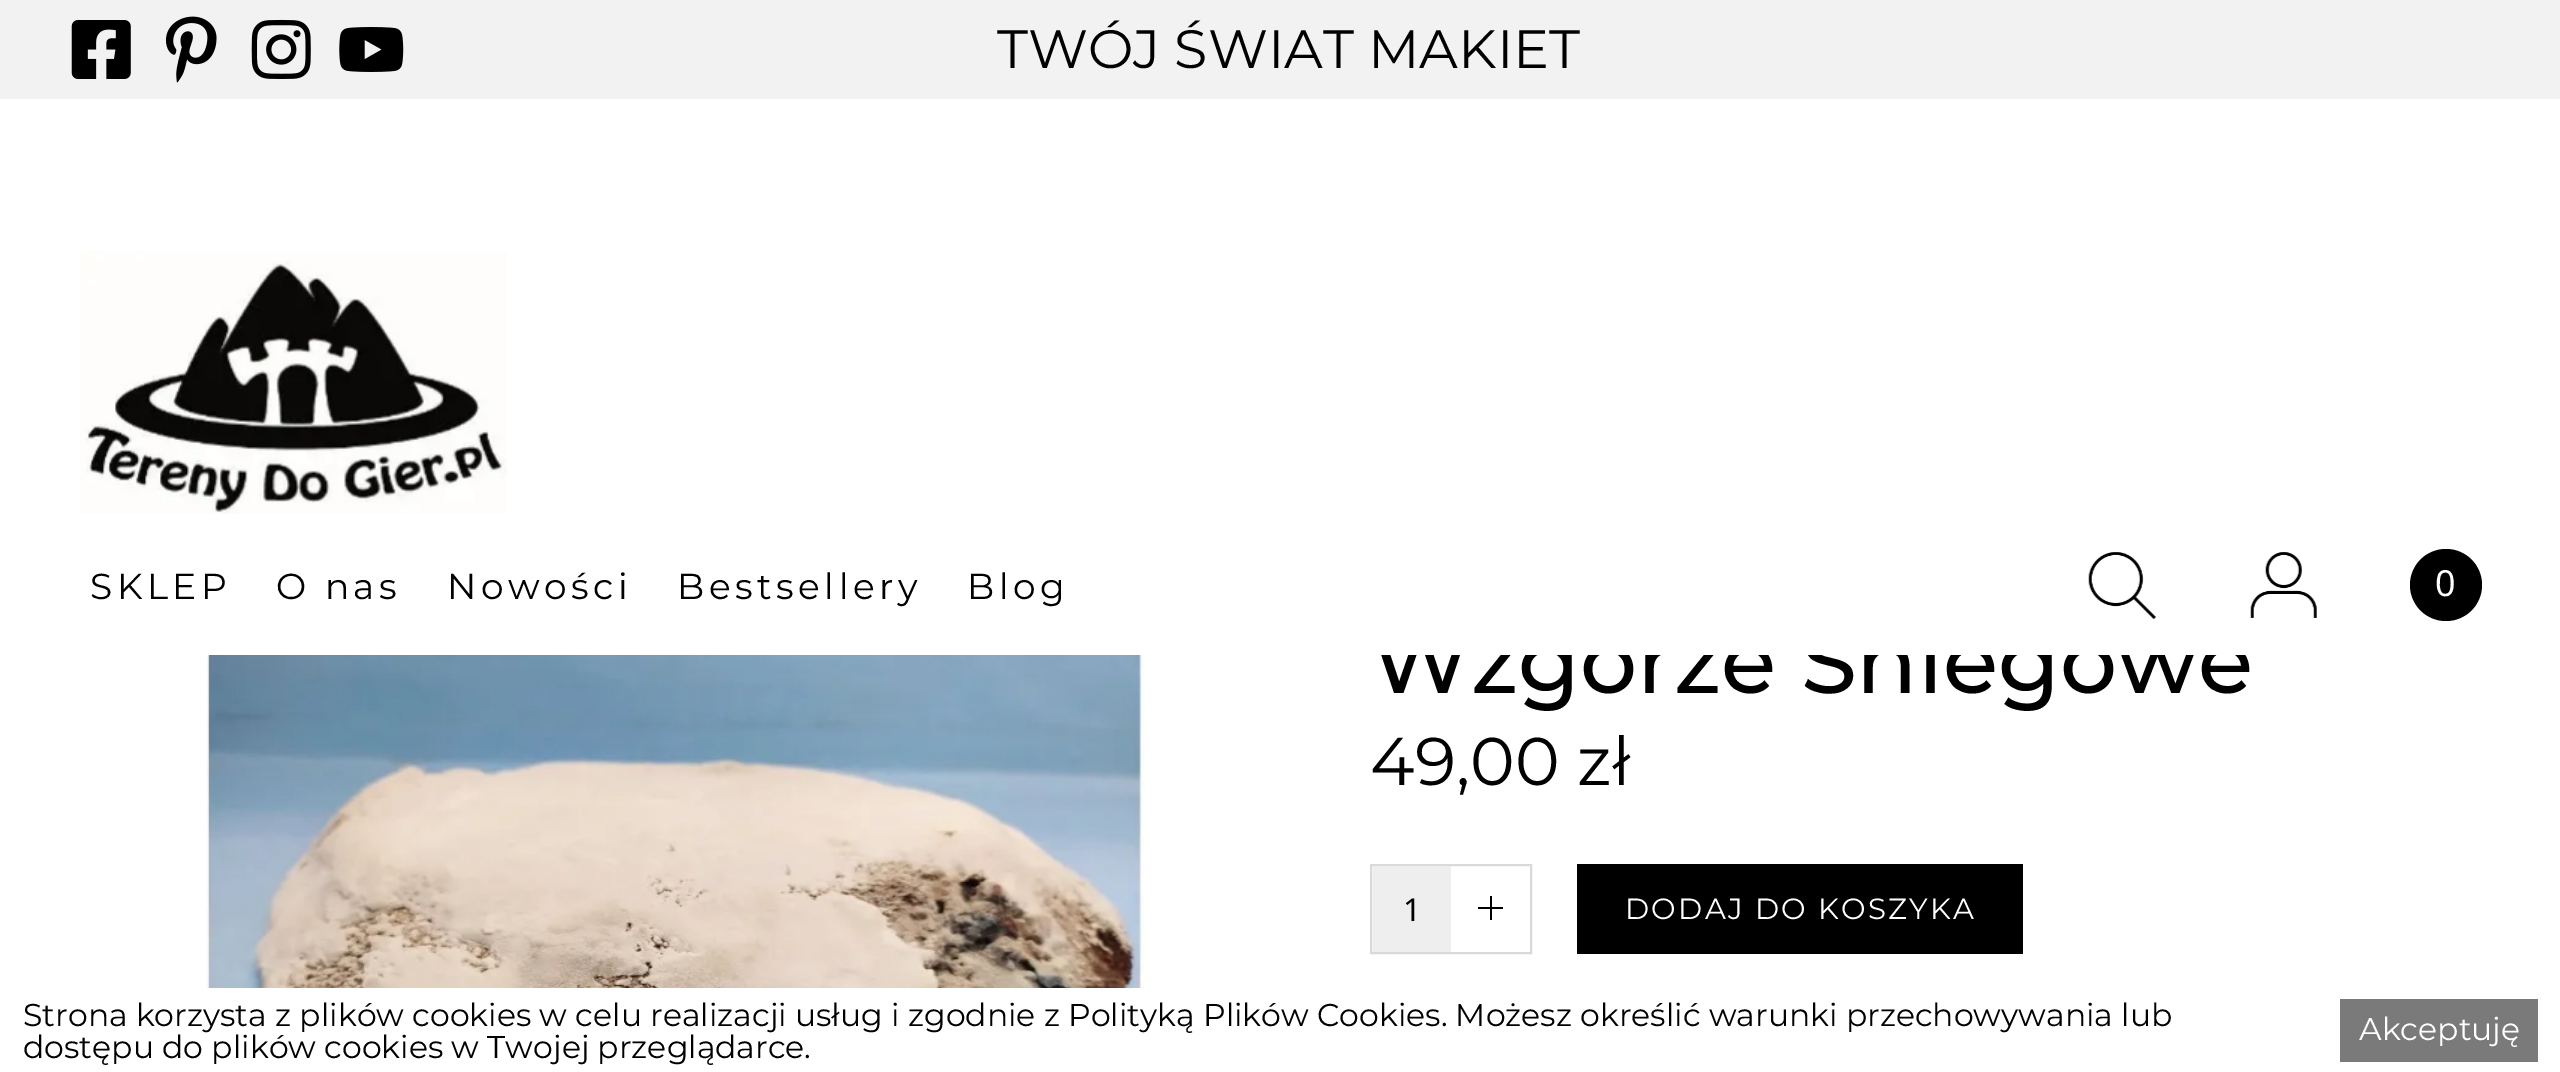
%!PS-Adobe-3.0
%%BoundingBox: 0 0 2560 1072
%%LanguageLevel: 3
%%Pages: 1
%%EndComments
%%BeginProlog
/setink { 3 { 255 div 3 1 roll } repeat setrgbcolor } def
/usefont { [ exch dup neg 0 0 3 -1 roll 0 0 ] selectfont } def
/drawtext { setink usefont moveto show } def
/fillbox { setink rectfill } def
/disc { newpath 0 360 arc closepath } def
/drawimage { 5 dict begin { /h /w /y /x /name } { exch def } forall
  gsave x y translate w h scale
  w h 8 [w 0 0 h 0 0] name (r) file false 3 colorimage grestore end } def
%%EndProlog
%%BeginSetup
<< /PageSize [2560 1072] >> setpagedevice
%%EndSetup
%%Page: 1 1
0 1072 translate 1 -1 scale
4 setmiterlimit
0 0 2560 1072 255 255 255 fillbox
0 0 2560 99 242 242 242 fillbox
(assets/img1.rgb) 71 20 60 59 drawimage
(assets/img2.rgb) 165 16 52 67 drawimage
(assets/img3.rgb) 251 19 60 60 drawimage
(assets/img4.rgb) 339 27 65 45 drawimage
(TWÓJ ŚWIAT MAKIET) 997 68 /Montserrat-Regular 54 0 0 0 drawtext
(Wzgórze Śniegowe) 1370 693 /Montserrat-Medium 90 0 0 0 drawtext
1373 613 873 42 255 255 255 fillbox
(assets/img5.rgb) 80 251 427 263 drawimage
/Montserrat-Regular 36 usefont
0 0 0 setink
90 599 moveto 4.5 0 (SKLEP) ashow
276 599 moveto 4.5 0 (O nas) ashow
447 599 moveto 4.5 0 (Nowości) ashow
677 599 moveto 4.5 0 (Bestsellery) ashow
967 599 moveto 4.5 0 (Blog) ashow
(assets/img6.rgb) 2088 552 68 67 drawimage
(assets/img7.rgb) 2250 552 67 66 drawimage
2446 585 36 disc fill
(0) 2435 596 /NotoSans-Regular 36 255 255 255 drawtext
(assets/img8.rgb) 206 655 939 333 drawimage
(49,00 zł) 1370 785 /Montserrat-Regular 67.5 0 0 0 drawtext
217 217 217 setink
2 setlinewidth
1371 865 160 88 rectstroke
1373 866 78 86 238 238 238 fillbox
(1) 1403 921 /NotoSans-Regular 31.5 0 0 0 drawtext
1478 907 25 2 0 0 0 fillbox
1490 896 2 24 0 0 0 fillbox
1577 864 446 90 0 0 0 fillbox
/Montserrat-Regular 29.25 usefont
255 255 255 setink
1625 919 moveto 2.25 0 (DODAJ DO KOSZYKA) ashow
(Strona korzysta z plików cookies w celu realizacji usług i zgodnie z Polityką Plików Cookies. Możesz określić warunki przechowywania lub) 23 1026 /Montserrat-Regular 31.5 0 0 0 drawtext
(dostępu do plików cookies w Twojej przeglądarce.) 23 1058 /Montserrat-Regular 31.5 0 0 0 drawtext
2340 999 198 63 122 122 122 fillbox
(Akceptuję) 2359 1040 /Montserrat-Regular 31.5 255 255 255 drawtext
showpage
%%EOF
